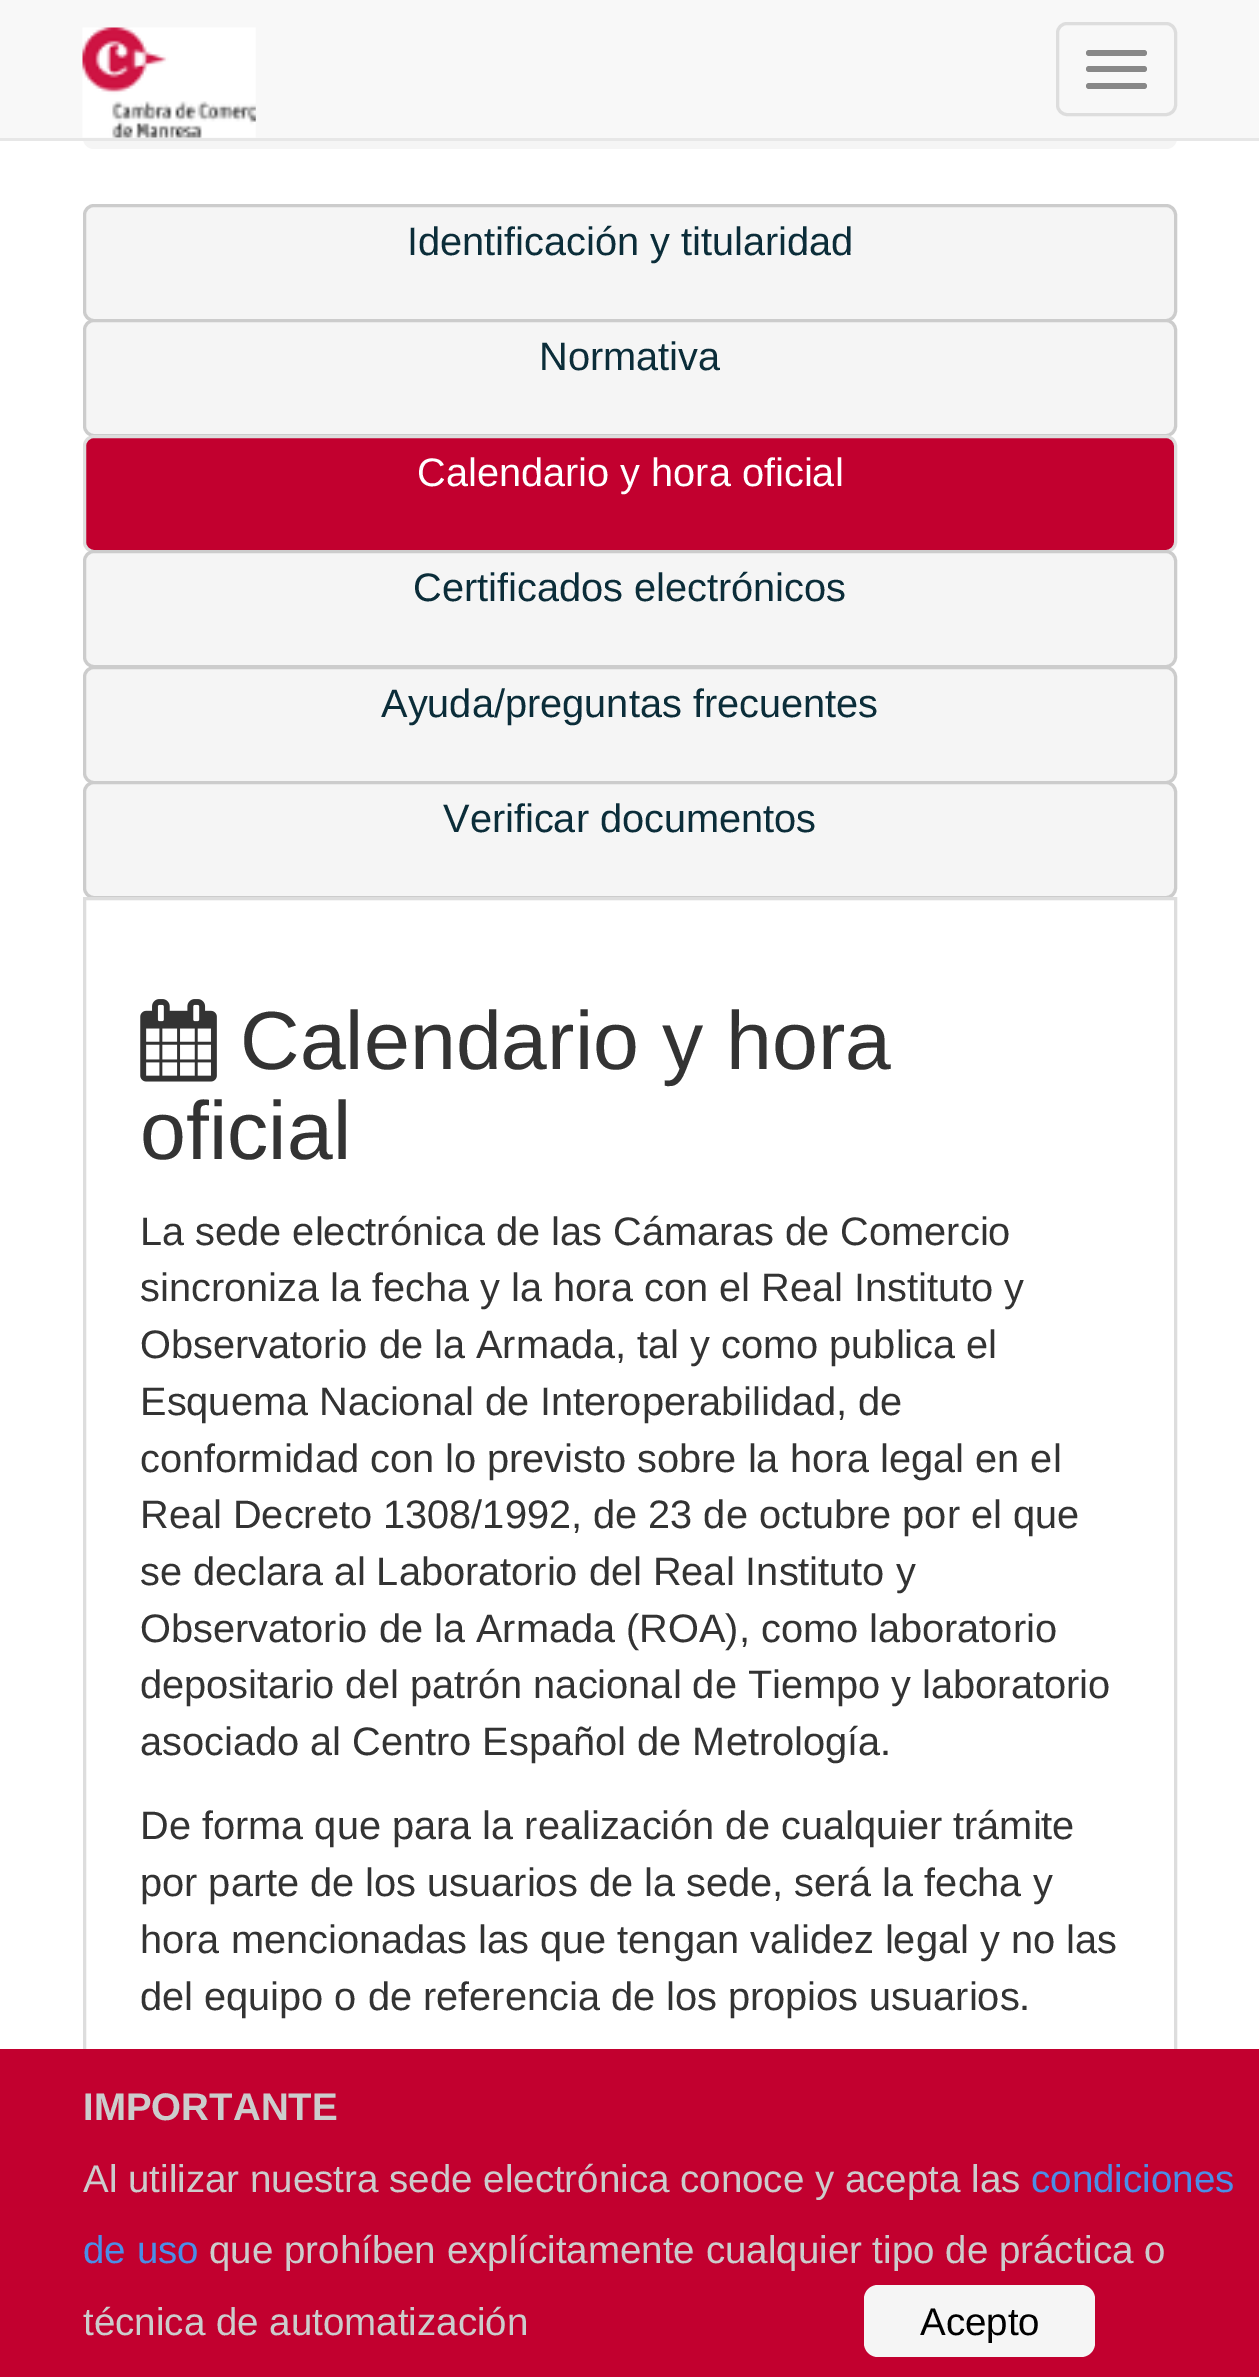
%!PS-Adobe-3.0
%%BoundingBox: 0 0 1259 2377
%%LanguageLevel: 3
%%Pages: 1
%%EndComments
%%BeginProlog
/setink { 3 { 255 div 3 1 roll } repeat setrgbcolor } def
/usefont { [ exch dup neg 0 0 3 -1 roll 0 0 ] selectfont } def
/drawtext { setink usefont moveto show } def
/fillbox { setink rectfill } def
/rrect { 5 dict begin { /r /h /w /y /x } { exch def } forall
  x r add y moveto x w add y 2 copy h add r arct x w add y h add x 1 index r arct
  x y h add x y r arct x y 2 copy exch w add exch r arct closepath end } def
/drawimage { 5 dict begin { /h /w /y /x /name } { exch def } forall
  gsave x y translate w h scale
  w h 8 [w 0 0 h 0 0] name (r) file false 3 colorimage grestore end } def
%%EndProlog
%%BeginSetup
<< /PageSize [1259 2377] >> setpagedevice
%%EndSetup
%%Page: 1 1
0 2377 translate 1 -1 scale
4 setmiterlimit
0 0 1259 2377 255 255 255 fillbox
245 245 245 setink
83 47 1094 102 11 rrect fill
0 0 1259 138 248 248 248 fillbox
0 138 1259 3 231 231 231 fillbox
(assets/img1.rgb) 82 27 174 111 drawimage
221 221 221 setink
3 setlinewidth
1057.5 23.5 118 91 9.5 rrect stroke
136 136 136 setink
1086 50 61 6 3 rrect fill
1086 66 61 6 3 rrect fill
1086 83 61 6 3 rrect fill
245 245 245 setink
84.5 205.5 1091 115 9.5 rrect gsave fill grestore
204 204 204 setink
stroke
(Identificación y titularidad) 407 255 /LiberationSans-Regular 39.75 11 45 57 drawtext
245 245 245 setink
84.5 320.5 1091 115 9.5 rrect gsave fill grestore
204 204 204 setink
stroke
(Normativa) 539 370 /LiberationSans-Regular 39.75 11 45 57 drawtext
194 0 47 setink
84.5 436.5 1091 115 9.5 rrect gsave fill grestore
221 221 221 setink
stroke
(Calendario y hora oficial) 417 486 /LiberationSans-Regular 39.75 255 255 255 drawtext
245 245 245 setink
84.5 551.5 1091 115 9.5 rrect gsave fill grestore
204 204 204 setink
stroke
(Certificados electrónicos) 413 601 /LiberationSans-Regular 39.75 11 45 57 drawtext
245 245 245 setink
84.5 667.5 1091 115 9.5 rrect gsave fill grestore
204 204 204 setink
stroke
(Ayuda/preguntas frecuentes) 381 717 /LiberationSans-Regular 39.75 11 45 57 drawtext
245 245 245 setink
84.5 782.5 1091 115 9.5 rrect gsave fill grestore
204 204 204 setink
stroke
(Verificar documentos) 443 832 /LiberationSans-Regular 39.75 11 45 57 drawtext
221 221 221 setink
84.5 898.5 1091 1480 rectstroke
(assets/img2.rgb) 140 999 77 83 drawimage
(Calendario y hora) 240 1069 /LiberationSans-Regular 82.5 51 51 51 drawtext
(oficial) 140 1159 /LiberationSans-Regular 82.5 51 51 51 drawtext
(La sede electrónica de las Cámaras de Comercio) 140 1245 /LiberationSans-Regular 39.75 51 51 51 drawtext
(sincroniza la fecha y la hora con el Real Instituto y) 140 1301 /LiberationSans-Regular 39.75 51 51 51 drawtext
(Observatorio de la Armada, tal y como publica el) 140 1358 /LiberationSans-Regular 39.75 51 51 51 drawtext
(Esquema Nacional de Interoperabilidad, de) 140 1415 /LiberationSans-Regular 39.75 51 51 51 drawtext
(conformidad con lo previsto sobre la hora legal en el) 140 1472 /LiberationSans-Regular 39.75 51 51 51 drawtext
(Real Decreto 1308/1992, de 23 de octubre por el que) 140 1528 /LiberationSans-Regular 39.75 51 51 51 drawtext
(se declara al Laboratorio del Real Instituto y) 140 1585 /LiberationSans-Regular 39.75 51 51 51 drawtext
(Observatorio de la Armada \(ROA\), como laboratorio) 140 1642 /LiberationSans-Regular 39.75 51 51 51 drawtext
(depositario del patrón nacional de Tiempo y laboratorio) 140 1698 /LiberationSans-Regular 39.75 51 51 51 drawtext
(asociado al Centro Español de Metrología.) 140 1755 /LiberationSans-Regular 39.75 51 51 51 drawtext
(De forma que para la realización de cualquier trámite) 140 1839 /LiberationSans-Regular 39.75 51 51 51 drawtext
(por parte de los usuarios de la sede, será la fecha y) 140 1896 /LiberationSans-Regular 39.75 51 51 51 drawtext
(hora mencionadas las que tengan validez legal y no las) 140 1953 /LiberationSans-Regular 39.75 51 51 51 drawtext
(del equipo o de referencia de los propios usuarios.) 140 2010 /LiberationSans-Regular 39.75 51 51 51 drawtext
0 2049 1259 328 194 0 47 fillbox
(IMPORTANTE) 83 2120 /LiberationSans-Bold 38.5 204 204 204 drawtext
(Al utilizar nuestra sede electrónica conoce y acepta las) 83 2192 /LiberationSans-Regular 38.5 204 204 204 drawtext
(condiciones) 1031 2192 /LiberationSans-Regular 38.5 75 142 231 drawtext
(de uso) 83 2263 /LiberationSans-Regular 38.5 75 142 231 drawtext
(que prohíben explícitamente cualquier tipo de práctica o) 209 2263 /LiberationSans-Regular 38.5 204 204 204 drawtext
(técnica de automatización) 83 2335 /LiberationSans-Regular 38.5 204 204 204 drawtext
245 245 245 setink
864 2285 231 72 14 rrect fill
(Acepto) 920 2335 /LiberationSans-Regular 38.5 0 0 0 drawtext
showpage
%%EOF
